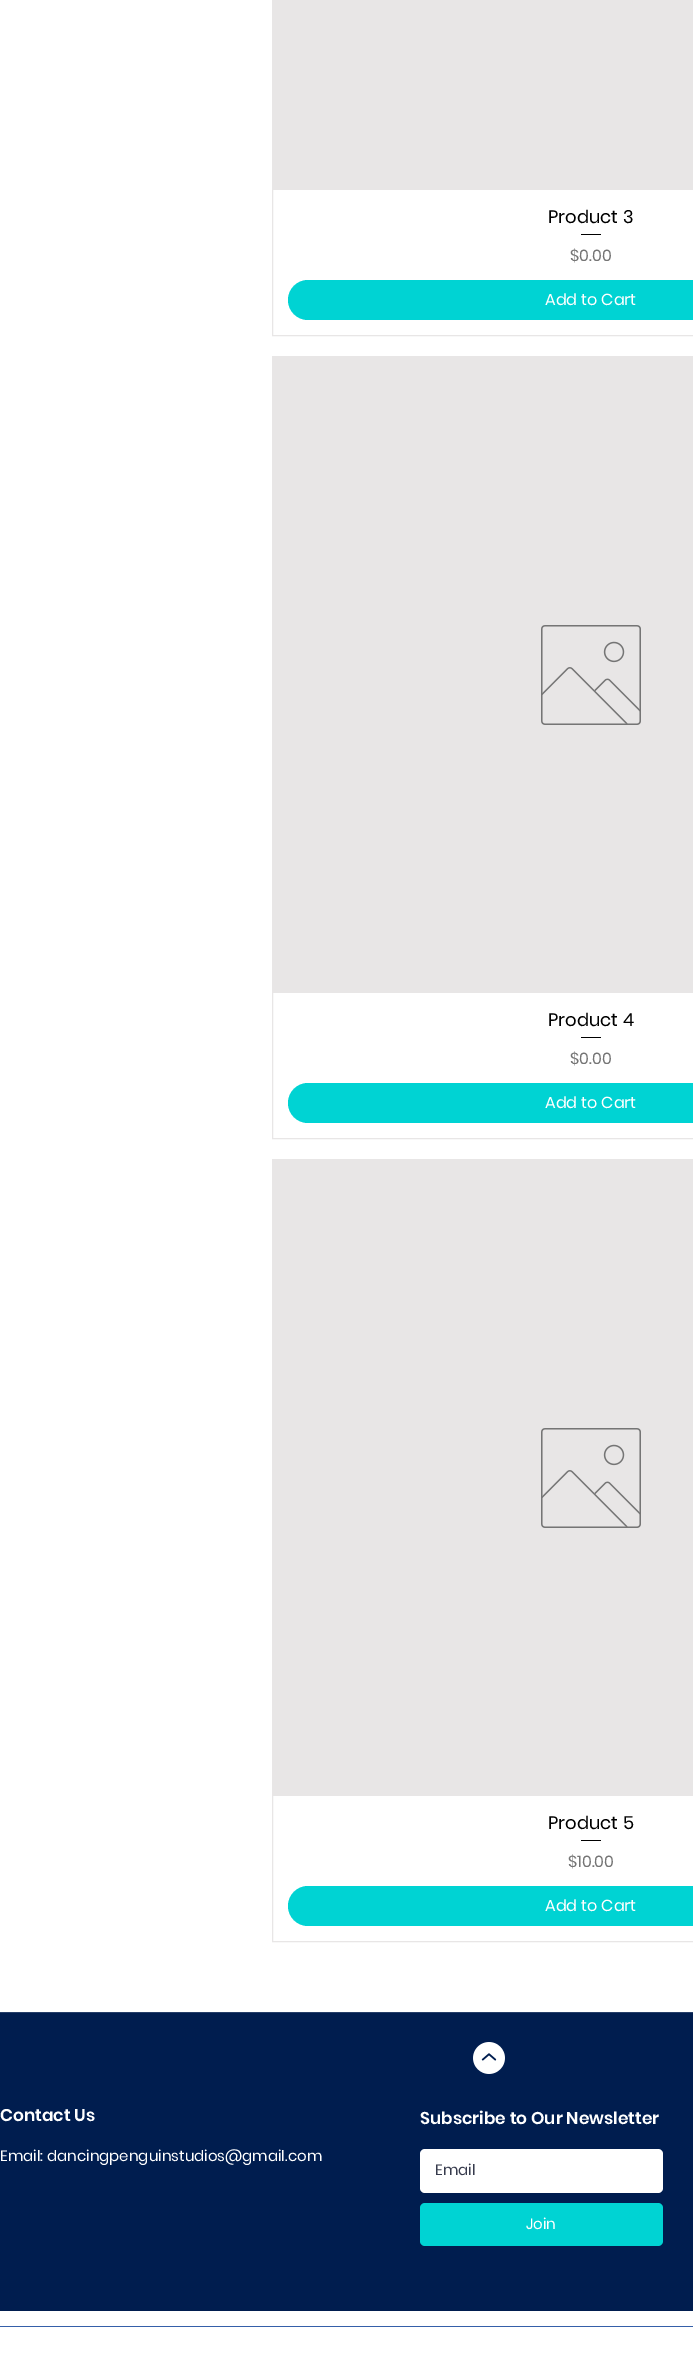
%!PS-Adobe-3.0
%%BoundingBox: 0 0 693 2367
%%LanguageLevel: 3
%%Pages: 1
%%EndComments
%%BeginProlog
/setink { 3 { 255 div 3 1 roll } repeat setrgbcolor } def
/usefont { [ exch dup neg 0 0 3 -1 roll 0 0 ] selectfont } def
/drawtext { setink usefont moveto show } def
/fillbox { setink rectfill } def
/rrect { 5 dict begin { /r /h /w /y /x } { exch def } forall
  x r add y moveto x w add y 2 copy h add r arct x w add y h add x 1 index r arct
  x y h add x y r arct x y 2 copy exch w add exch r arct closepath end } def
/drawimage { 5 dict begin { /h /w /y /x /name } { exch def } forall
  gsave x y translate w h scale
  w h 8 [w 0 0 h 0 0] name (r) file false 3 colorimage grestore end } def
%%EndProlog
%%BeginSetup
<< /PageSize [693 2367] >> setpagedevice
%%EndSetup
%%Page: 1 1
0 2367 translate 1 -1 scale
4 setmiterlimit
0 0 693 2367 255 255 255 fillbox
232 230 230 setink
272.5 -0.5 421 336 rectstroke
273 0 420 190 232 230 230 fillbox
(Product 3) 548 223 /Poppins-Regular 18 0 0 0 drawtext
581 234 20 1 0 0 0 fillbox
($0.00) 570 261 /Poppins-Regular 16 117 117 117 drawtext
0 211 211 setink
288 280 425 40 20 rrect fill
(Add to Cart) 545 305 /Poppins-Regular 16 255 255 255 drawtext
232 230 230 setink
272.5 356.5 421 782 rectstroke
273 357 420 636 232 230 230 fillbox
(assets/img1.rgb) 541 625 100 100 drawimage
(Product 4) 548 1026 /Poppins-Regular 18 0 0 0 drawtext
581 1037 20 1 0 0 0 fillbox
($0.00) 570 1064 /Poppins-Regular 16 117 117 117 drawtext
0 211 211 setink
288 1083 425 40 20 rrect fill
(Add to Cart) 545 1108 /Poppins-Regular 16 255 255 255 drawtext
232 230 230 setink
272.5 1159.5 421 782 rectstroke
273 1160 420 636 232 230 230 fillbox
(assets/img1.rgb) 541 1428 100 100 drawimage
(Product 5) 548 1829 /Poppins-Regular 18 0 0 0 drawtext
581 1840 20 1 0 0 0 fillbox
($10.00) 568 1867 /Poppins-Regular 16 117 117 117 drawtext
0 211 211 setink
288 1886 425 40 20 rrect fill
(Add to Cart) 545 1911 /Poppins-Regular 16 255 255 255 drawtext
0 2013 693 298 0 29 79 fillbox
0 2012 693 1 38 63 105 fillbox
(assets/img2.rgb) 473 2042 32 32 drawimage
(Contact Us) 0 2121 /Poppins-SemiBold 17 255 255 255 drawtext
(Subscribe to Our Newsletter) 420 2124 /Poppins-SemiBold 17 255 255 255 drawtext
(Email: dancingpenguinstudios@gmail.com) 0 2161 /Poppins-Regular 15 255 255 255 drawtext
420 2149 243 44 5 rrect fill
(Email) 435 2175 /Poppins-Regular 15 55 59 77 drawtext
0 211 211 setink
420 2203 243 43 5 rrect fill
(Join) 526 2229 /Poppins-Regular 15 255 255 255 drawtext
0 2326 693 1 53 96 170 fillbox
showpage
%%EOF
